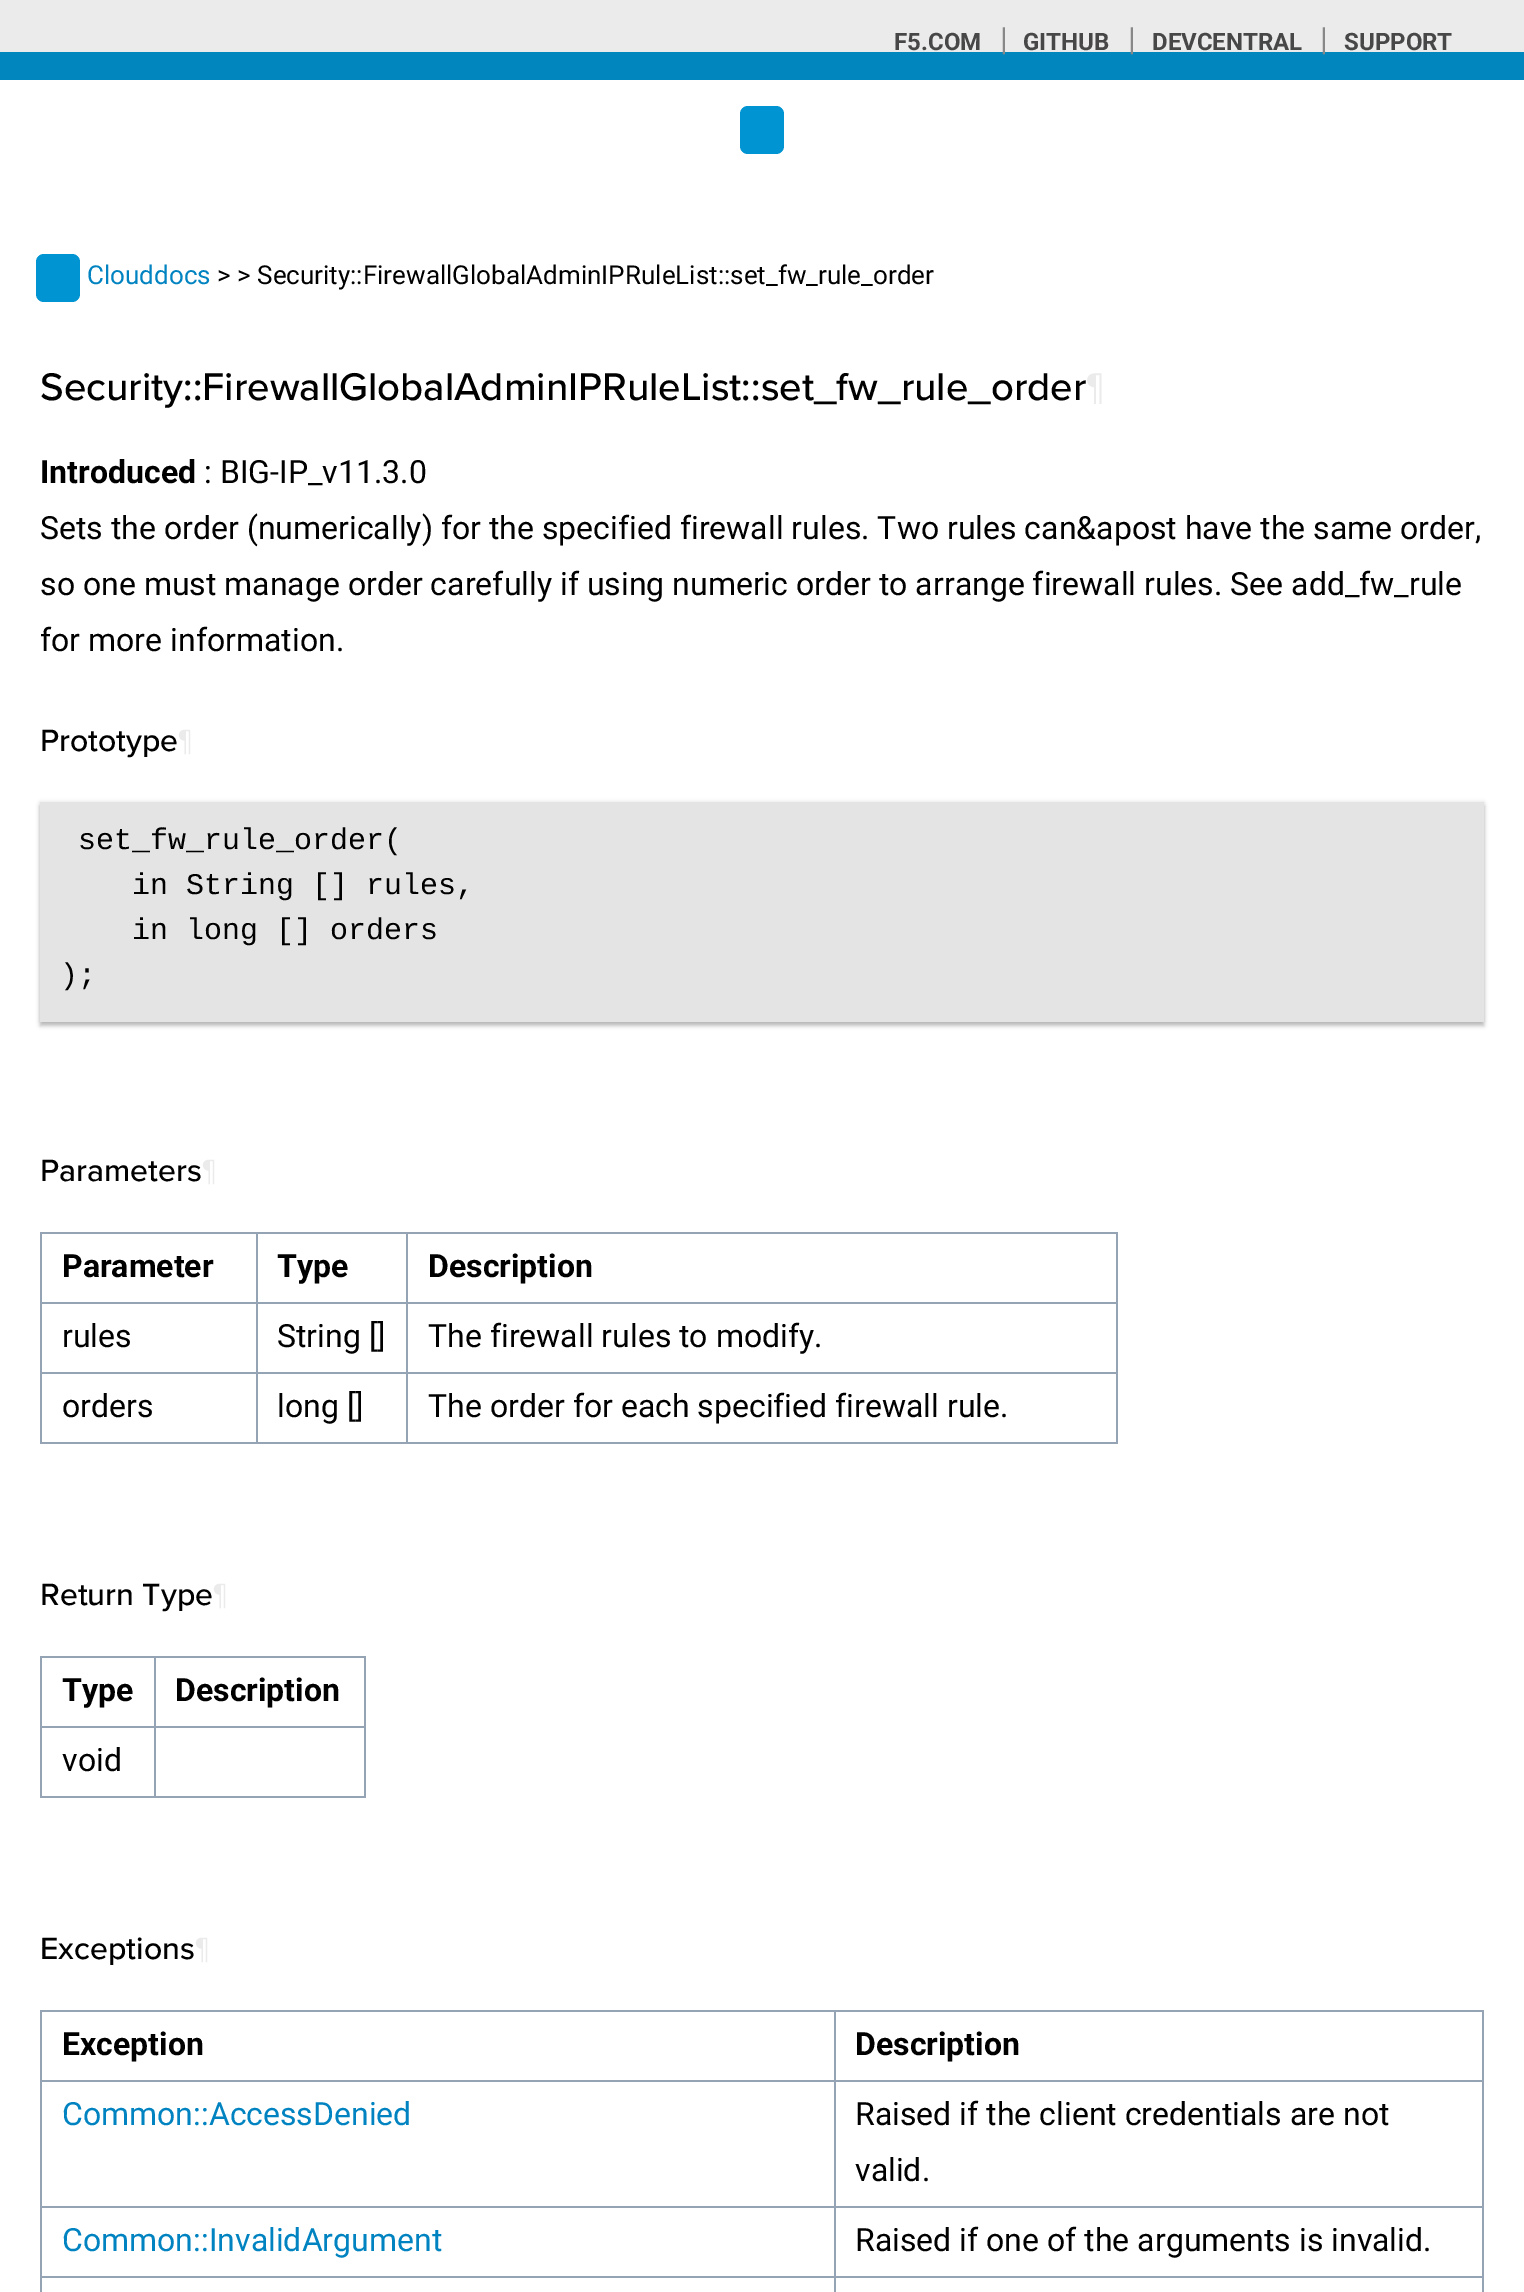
%!PS-Adobe-3.0
%%BoundingBox: 0 0 1524 2292
%%LanguageLevel: 3
%%Pages: 1
%%EndComments
%%BeginProlog
/setink { 3 { 255 div 3 1 roll } repeat setrgbcolor } def
/usefont { [ exch dup neg 0 0 3 -1 roll 0 0 ] selectfont } def
/drawtext { setink usefont moveto show } def
/fillbox { setink rectfill } def
/setalpha { dup .setfillconstantalpha .setstrokeconstantalpha } def
/rrect { 5 dict begin { /r /h /w /y /x } { exch def } forall
  x r add y moveto x w add y 2 copy h add r arct x w add y h add x 1 index r arct
  x y h add x y r arct x y 2 copy exch w add exch r arct closepath end } def
/softshadow { 12 dict begin { /a /b /q /h /w /y /x } { exch def } forall gsave /was 0 def
  9 -2 -9 { dup b mul 4 div /e exch def 1 sub .425 mul 2.718 exch exp 1 add a .99 .min exch div /now exch def
    1 1 now sub 1 was sub div sub setalpha /was now def
    w h .min e 2 mul add 0 gt { x e sub y e sub w e 2 mul add h e 2 mul add
      q e add b .6 mul add w h .min 2 div e add .min 0 .max rrect fill } if } for grestore end } def
%%EndProlog
%%BeginSetup
<< /PageSize [1524 2292] /PageUsesTransparency true >> setpagedevice
%%EndSetup
%%Page: 1 1
0 .pushpdf14devicefilter
0 2292 translate 1 -1 scale
4 setmiterlimit
0 0 1524 2292 255 255 255 fillbox
0 0 1524 52 235 235 235 fillbox
0 52 1524 28 1 134 190 fillbox
(F5.COM) 894 50 /Roboto-Bold 24 71 71 71 drawtext
(|) 1000 50 /Roboto-Regular 32 136 136 136 drawtext
(GITHUB) 1023 50 /Roboto-Bold 24 71 71 71 drawtext
(|) 1128 50 /Roboto-Regular 32 136 136 136 drawtext
(DEVCENTRAL) 1152 50 /Roboto-Bold 24 71 71 71 drawtext
(|) 1320 50 /Roboto-Regular 32 136 136 136 drawtext
(SUPPORT) 1344 50 /Roboto-Bold 24 71 71 71 drawtext
1 148 210 setink
740 106 44 48 8 rrect fill
36 254 44 48 8 rrect fill
(Clouddocs) 87 284 /Roboto-Regular 26 0 131 192 drawtext
(> > Security::FirewallGlobalAdminIPRuleList::set_fw_rule_order) 217 284 /Roboto-Regular 26 0 0 0 drawtext
(Security::FirewallGlobalAdminIPRuleList::set_fw_rule_order) 40 400 /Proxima-Regular 40 0 0 0 drawtext
(¶) 1086 400 /Proxima-Regular 40 235 235 235 drawtext
(Introduced) 40 483 /Roboto-Bold 32 0 0 0 drawtext
(: BIG-IP_v11.3.0) 204 483 /Roboto-Regular 32 0 0 0 drawtext
(Sets the order \(numerically\) for the specified firewall rules. Two rules can&apost have the same order,) 40 539 /Roboto-Regular 32 0 0 0 drawtext
(so one must manage order carefully if using numeric order to arrange firewall rules. See add_fw_rule) 40 595 /Roboto-Regular 32 0 0 0 drawtext
(for more information.) 40 651 /Roboto-Regular 32 0 0 0 drawtext
(Prototype) 40 751 /Proxima-Regular 32 0 0 0 drawtext
(¶) 178 751 /Proxima-Regular 32 235 235 235 drawtext
0 0 0 setink
40 802 1444 220 0 2 0.12 softshadow
40 806 1444 220 0 2 0.24 softshadow
40 802 1444 220 228 228 228 fillbox
(set_fw_rule_order\() 78 849 /LiberationMono-Regular 30 0 0 0 drawtext
(in String [] rules,) 132 894 /LiberationMono-Regular 30 0 0 0 drawtext
(in long [] orders) 132 939 /LiberationMono-Regular 30 0 0 0 drawtext
(\);) 60 984 /LiberationMono-Regular 30 0 0 0 drawtext
(Parameters) 40 1181 /Proxima-Regular 32 0 0 0 drawtext
(¶) 202 1181 /Proxima-Regular 32 235 235 235 drawtext
40 1232 1078 2 148 164 181 fillbox
1116 1232 2 212 148 164 181 fillbox
40 1442 1078 2 148 164 181 fillbox
40 1232 2 212 148 164 181 fillbox
(Parameter) 62 1277 /Roboto-Bold 32 0 0 0 drawtext
406 1302 712 2 148 164 181 fillbox
406 1372 712 2 148 164 181 fillbox
406 1372 2 72 148 164 181 fillbox
256 1372 152 2 148 164 181 fillbox
406 1302 2 72 148 164 181 fillbox
256 1302 152 2 148 164 181 fillbox
256 1372 2 72 148 164 181 fillbox
40 1372 218 2 148 164 181 fillbox
256 1302 2 72 148 164 181 fillbox
40 1302 218 2 148 164 181 fillbox
256 1232 2 72 148 164 181 fillbox
(Type) 277 1277 /Roboto-Bold 32 0 0 0 drawtext
406 1232 2 72 148 164 181 fillbox
(Description) 428 1277 /Roboto-Bold 32 0 0 0 drawtext
(rules) 62 1347 /Roboto-Regular 32 0 0 0 drawtext
(String []) 277 1347 /Roboto-Regular 32 0 0 0 drawtext
(The firewall rules to modify.) 428 1347 /Roboto-Regular 32 0 0 0 drawtext
(orders) 62 1417 /Roboto-Regular 32 0 0 0 drawtext
(long []) 277 1417 /Roboto-Regular 32 0 0 0 drawtext
(The order for each specified firewall rule.) 428 1417 /Roboto-Regular 32 0 0 0 drawtext
(Return Type) 40 1605 /Proxima-Regular 32 0 0 0 drawtext
(¶) 213 1605 /Proxima-Regular 32 235 235 235 drawtext
40 1656 326 2 148 164 181 fillbox
364 1656 2 142 148 164 181 fillbox
40 1796 326 2 148 164 181 fillbox
40 1656 2 142 148 164 181 fillbox
(Type) 62 1701 /Roboto-Bold 32 0 0 0 drawtext
154 1726 212 2 148 164 181 fillbox
154 1726 2 72 148 164 181 fillbox
40 1726 116 2 148 164 181 fillbox
154 1656 2 72 148 164 181 fillbox
(Description) 175 1701 /Roboto-Bold 32 0 0 0 drawtext
(void) 62 1771 /Roboto-Regular 32 0 0 0 drawtext
(Exceptions) 40 1959 /Proxima-Regular 32 0 0 0 drawtext
(¶) 195 1959 /Proxima-Regular 32 235 235 235 drawtext
40 2010 1444 2 148 164 181 fillbox
1482 2010 2 282 148 164 181 fillbox
40 2010 2 282 148 164 181 fillbox
(Exception) 62 2055 /Roboto-Bold 32 0 0 0 drawtext
834 2080 650 2 148 164 181 fillbox
834 2206 650 2 148 164 181 fillbox
834 2276 650 2 148 164 181 fillbox
834 2276 2 16 148 164 181 fillbox
40 2276 796 2 148 164 181 fillbox
834 2206 2 72 148 164 181 fillbox
40 2206 796 2 148 164 181 fillbox
834 2080 2 128 148 164 181 fillbox
40 2080 796 2 148 164 181 fillbox
834 2010 2 72 148 164 181 fillbox
(Description) 855 2055 /Roboto-Bold 32 0 0 0 drawtext
(Common::AccessDenied) 62 2125 /Roboto-Regular 32 0 131 192 drawtext
(Raised if the client credentials are not) 855 2125 /Roboto-Regular 32 0 0 0 drawtext
(valid.) 855 2181 /Roboto-Regular 32 0 0 0 drawtext
(Common::InvalidArgument) 62 2251 /Roboto-Regular 32 0 131 192 drawtext
(Raised if one of the arguments is invalid.) 855 2251 /Roboto-Regular 32 0 0 0 drawtext
.poppdf14devicefilter showpage
%%EOF
